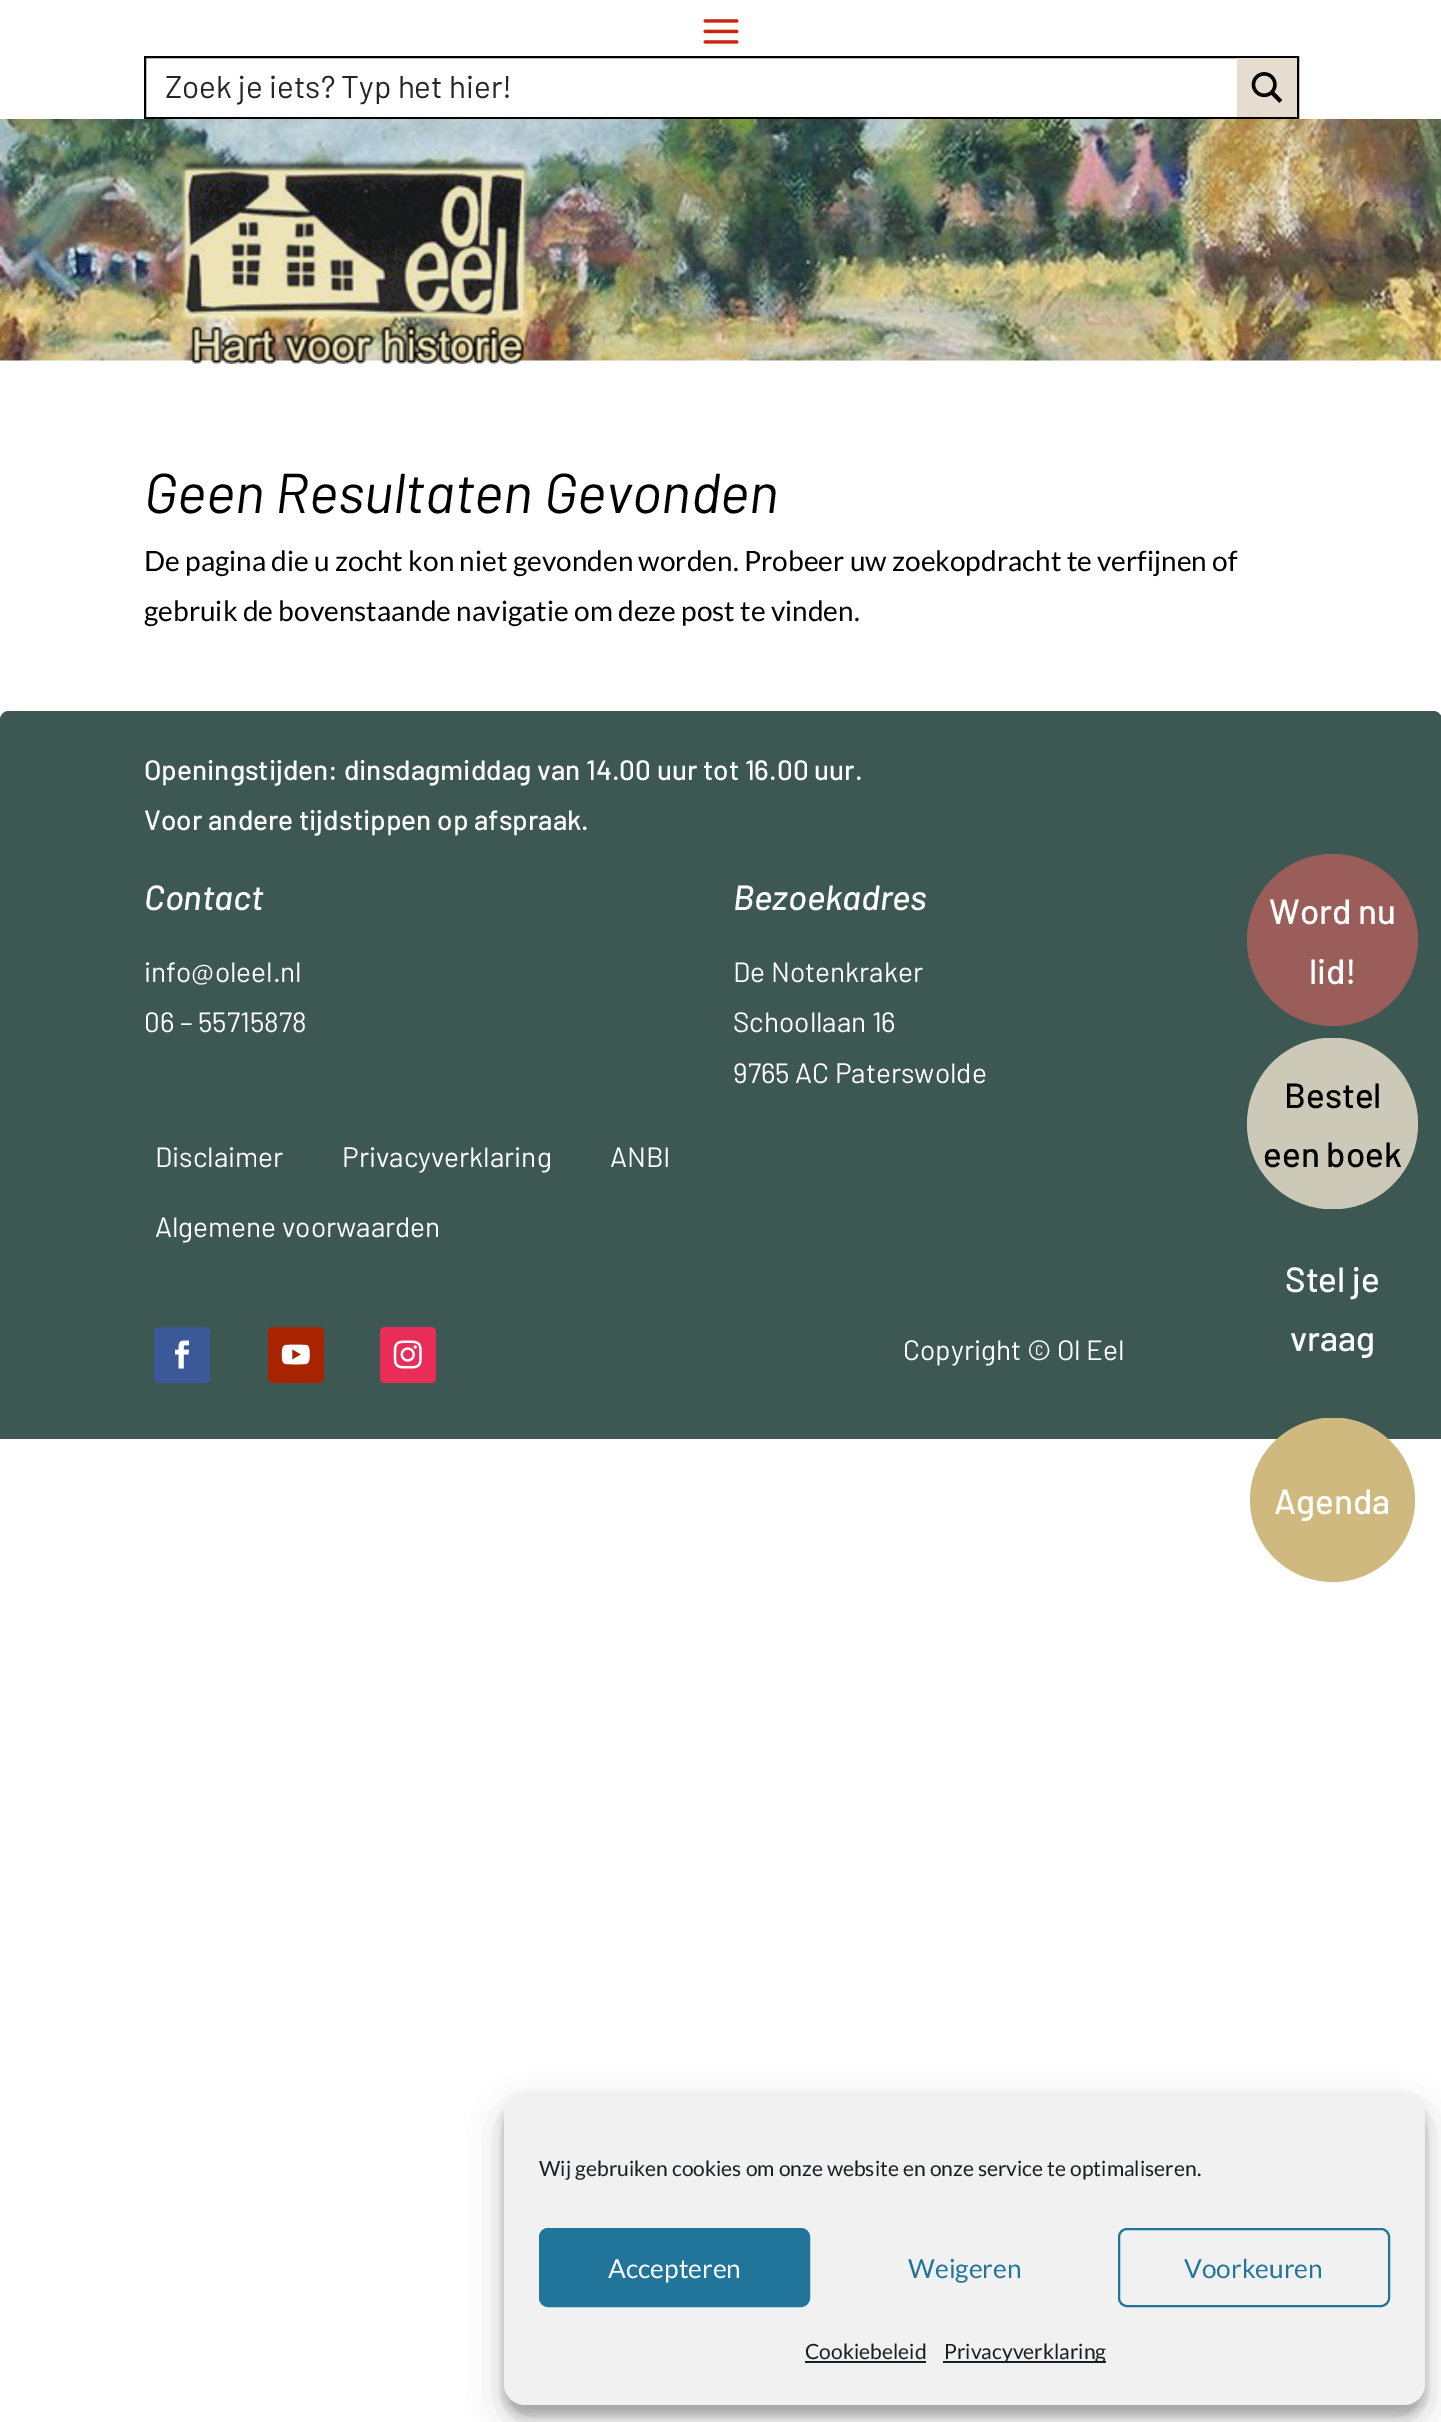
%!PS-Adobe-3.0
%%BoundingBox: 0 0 1441 2422
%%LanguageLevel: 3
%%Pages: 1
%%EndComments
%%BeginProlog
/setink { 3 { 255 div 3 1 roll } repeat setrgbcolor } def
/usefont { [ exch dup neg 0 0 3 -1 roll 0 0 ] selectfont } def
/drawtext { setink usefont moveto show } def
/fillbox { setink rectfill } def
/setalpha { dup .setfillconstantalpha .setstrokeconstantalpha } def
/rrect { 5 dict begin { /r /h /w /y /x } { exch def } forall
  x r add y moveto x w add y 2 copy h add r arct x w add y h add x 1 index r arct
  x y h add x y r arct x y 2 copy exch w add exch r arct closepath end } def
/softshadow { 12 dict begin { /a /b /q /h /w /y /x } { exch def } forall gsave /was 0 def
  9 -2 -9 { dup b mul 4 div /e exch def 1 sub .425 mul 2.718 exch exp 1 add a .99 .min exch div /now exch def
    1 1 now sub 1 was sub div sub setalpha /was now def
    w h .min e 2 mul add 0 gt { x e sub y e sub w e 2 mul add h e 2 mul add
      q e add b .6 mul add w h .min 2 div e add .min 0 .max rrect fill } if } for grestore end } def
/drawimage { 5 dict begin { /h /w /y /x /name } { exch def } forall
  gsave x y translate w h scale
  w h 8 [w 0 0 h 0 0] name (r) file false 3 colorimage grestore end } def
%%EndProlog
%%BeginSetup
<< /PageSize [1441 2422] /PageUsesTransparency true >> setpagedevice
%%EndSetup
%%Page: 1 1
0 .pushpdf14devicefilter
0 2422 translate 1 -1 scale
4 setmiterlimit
0 0 1441 2422 255 255 255 fillbox
(assets/img1.rgb) 703 19 36 25 drawimage
0 0 0 setink
2 setlinewidth
145 57 1153 61 rectstroke
(Zoek je iets? Typ het hier!) 165 98 /Barlow-Regular 31.5 38 38 38 drawtext
1237 58 60 59 231 220 208 fillbox
(assets/img2.rgb) 1251 72 32 31 drawimage
(assets/img3.rgb) 0 119 1441 242 drawimage
(assets/img4.rgb) 180 159 349 205 drawimage
61 88 83 setink
9 711 moveto 1433 711 lineto 1438 711 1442 715 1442 720 curveto 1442 1439 lineto 0 1439 lineto 0 720 lineto 0 715 4 711 9 711 curveto closepath fill
155 93 90 setink
1333 854 moveto 1285 854 1247 892 1247 940 curveto 1247 987 1285 1026 1333 1026 curveto 1380 1026 1418 987 1418 940 curveto 1418 892 1380 854 1333 854 curveto closepath fill
(Word nu) 1269 924 /Barlow-Medium 35 255 255 255 drawtext
(lid!) 1309 984 /Barlow-Medium 35 255 255 255 drawtext
204 201 185 setink
1326 1209 moveto 1282 1206 1247 1169 1247 1124 curveto 1247 1078 1282 1041 1326 1038 curveto 1339 1038 lineto 1383 1041 1418 1078 1418 1124 curveto 1418 1169 1383 1206 1339 1209 curveto closepath fill
(Bestel) 1284 1108 /Barlow-Medium 35 0 0 0 drawtext
(een boek) 1263 1167 /Barlow-Medium 35 0 0 0 drawtext
(Stel je) 1285 1292 /Barlow-Medium 35 255 255 255 drawtext
(vraag) 1290 1351 /Barlow-Medium 35 255 255 255 drawtext
208 185 126 setink
1342 1418 moveto 1383 1423 1415 1457 1415 1500 curveto 1415 1545 1378 1582 1333 1582 curveto 1287 1582 1250 1545 1250 1500 curveto 1250 1457 1282 1423 1324 1418 curveto closepath fill
(Agenda) 1274 1514 /Barlow-Medium 35 255 255 255 drawtext
(Geen Resultaten Gevonden) 144 513 /Barlow-Italic 56 0 0 0 drawtext
(De pagina die u zocht kon niet gevonden worden. Probeer uw zoekopdracht te verfijnen of) 144 571 /Lato-Regular 28 0 0 0 drawtext
(gebruik de bovenstaande navigatie om deze post te vinden.) 144 621 /Lato-Regular 28 0 0 0 drawtext
(Openingstijden: dinsdagmiddag van 14.00 uur tot 16.00 uur.) 144 780 /Barlow-Medium 28 255 255 255 drawtext
(Voor andere tijdstippen op afspraak.) 144 830 /Barlow-Medium 28 255 255 255 drawtext
(Contact) 144 910 /Barlow-MediumItalic 35 255 255 255 drawtext
(info@oleel.nl) 144 982 /Barlow-Regular 28 255 255 255 drawtext
(06 – 55715878) 144 1032 /Barlow-Regular 28 255 255 255 drawtext
(Bezoekadres) 733 910 /Barlow-MediumItalic 35 255 255 255 drawtext
(De Notenkraker) 733 982 /Barlow-Regular 28 255 255 255 drawtext
(Schoollaan 16) 733 1032 /Barlow-Regular 28 255 255 255 drawtext
(9765 AC Paterswolde) 733 1083 /Barlow-Regular 28 255 255 255 drawtext
(Disclaimer) 155 1167 /Barlow-Regular 28 255 255 255 drawtext
(Privacyverklaring) 342 1167 /Barlow-Regular 28 255 255 255 drawtext
(ANBI) 610 1167 /Barlow-Regular 28 255 255 255 drawtext
(Algemene voorwaarden) 155 1237 /Barlow-Regular 28 255 255 255 drawtext
59 89 152 setink
154 1327 56 56 5 rrect fill
(assets/img5.rgb) 175 1340 15 29 drawimage
168 36 0 setink
268 1327 56 56 5 rrect fill
(assets/img6.rgb) 281 1344 29 21 drawimage
234 44 89 setink
380 1327 56 56 5 rrect fill
(assets/img7.rgb) 393 1340 29 29 drawimage
(Copyright © Ol Eel) 903 1360 /Barlow-Regular 28 255 255 255 drawtext
0 0 0 setink
504 2102 921 313 21 5 0.23 softshadow
504 2109 921 313 21 17.5 0.19 softshadow
241 241 241 setink
504 2091 921 314 21 rrect fill
(Wij gebruiken cookies om onze website en onze service te optimaliseren.) 539 2176 /Lato-Regular 21 25 30 35 drawtext
33 117 155 setink
540 2229 269 77 8 rrect gsave fill grestore
stroke
(Accepteren) 608 2278 /Lato-Regular 26.25 255 255 255 drawtext
(Weigeren) 908 2278 /Lato-Regular 26.25 33 117 155 drawtext
1119 2229 270 77 8 rrect stroke
(Voorkeuren) 1184 2278 /Lato-Regular 26.25 33 117 155 drawtext
(Cookiebeleid) 805 2359 /Lato-Regular 21 25 30 35 drawtext
805 2361 121 2 25 30 35 fillbox
943 2361 163 2 25 30 35 fillbox
(Privacyverklaring) 944 2359 /Lato-Regular 21 25 30 35 drawtext
.poppdf14devicefilter showpage
%%EOF
